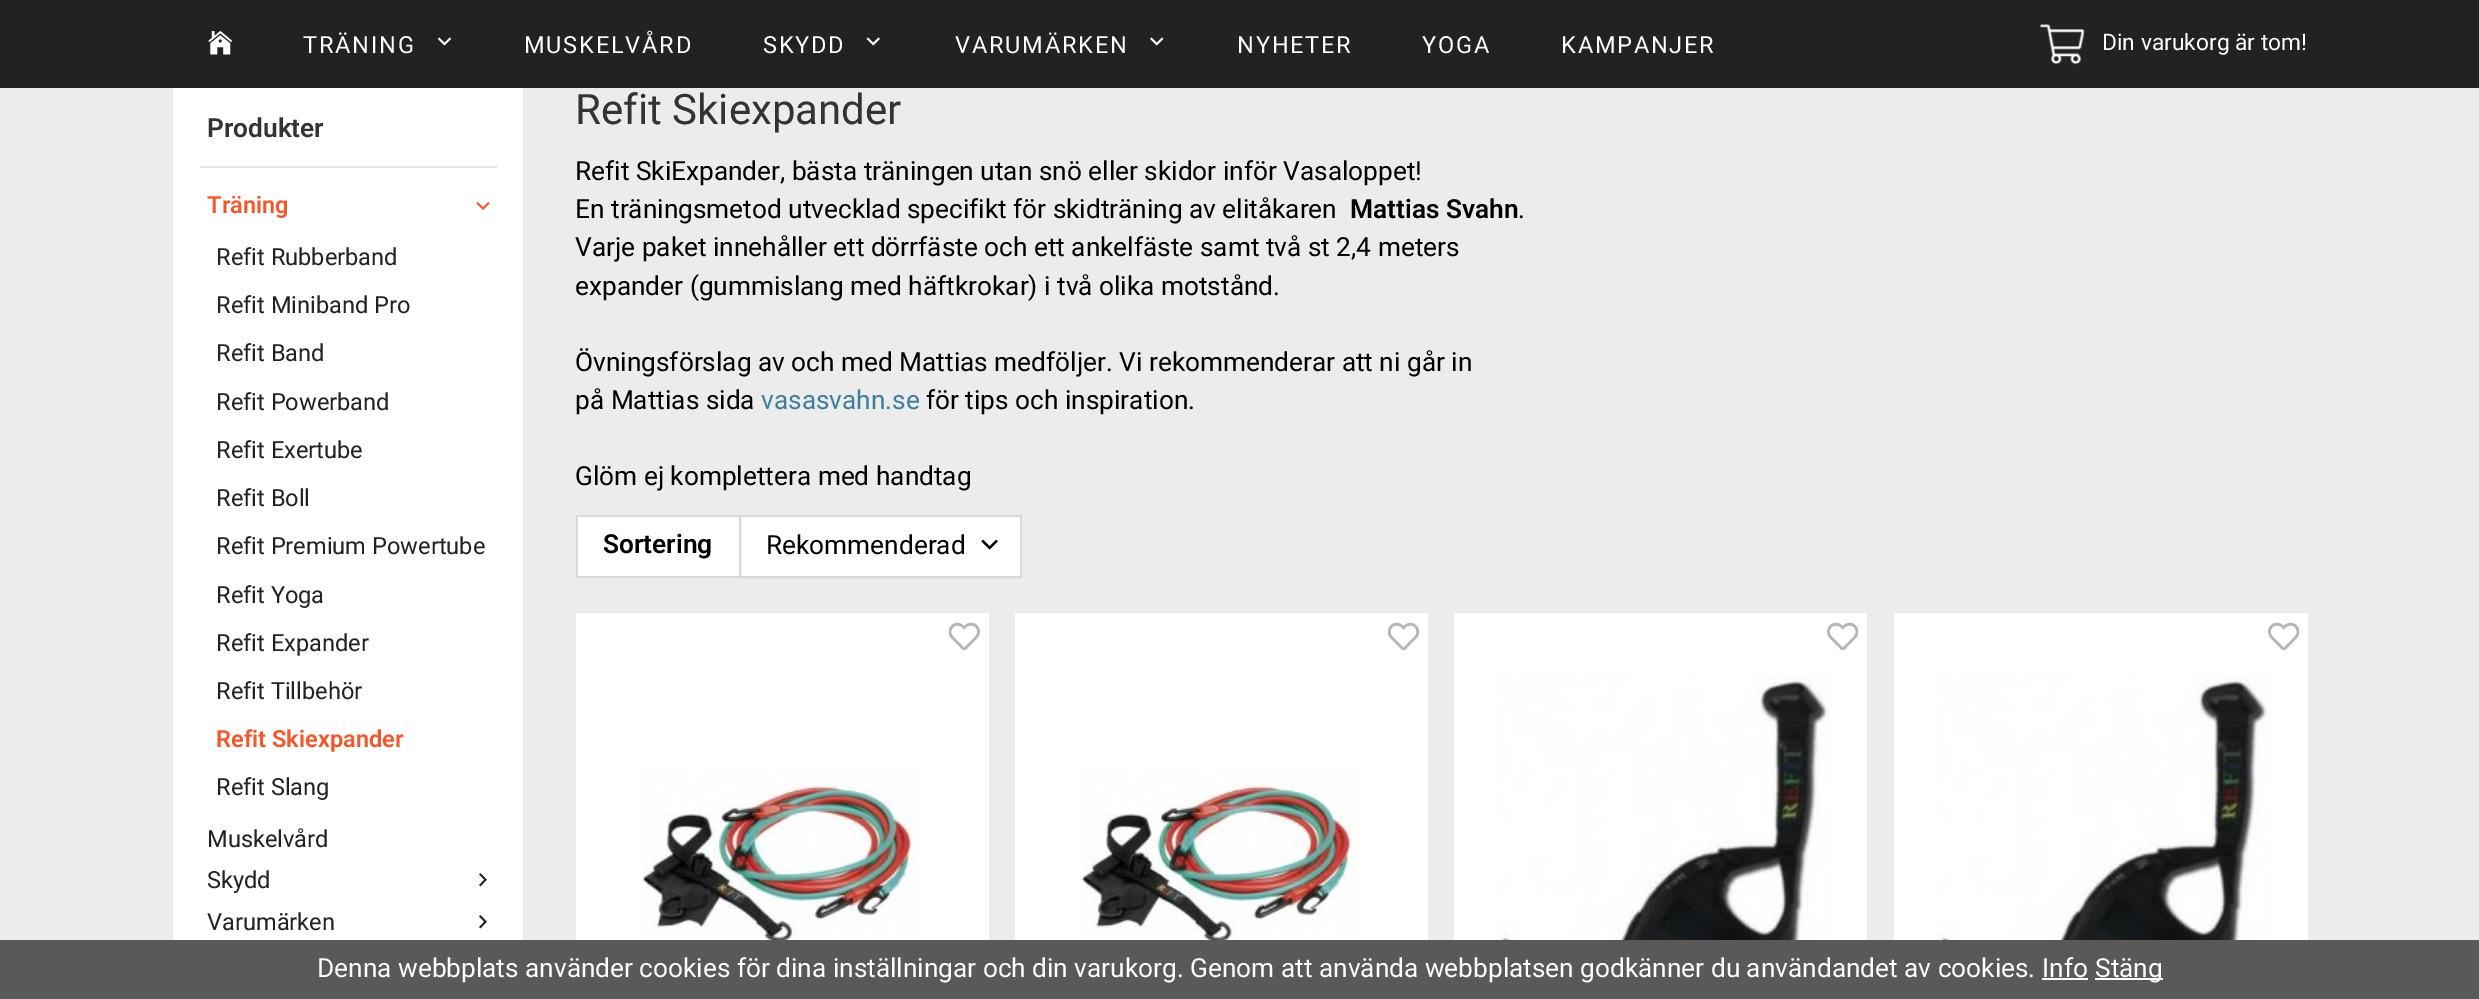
%!PS-Adobe-3.0
%%BoundingBox: 0 0 2479 999
%%LanguageLevel: 3
%%Pages: 1
%%EndComments
%%BeginProlog
/setink { 3 { 255 div 3 1 roll } repeat setrgbcolor } def
/usefont { [ exch dup neg 0 0 3 -1 roll 0 0 ] selectfont } def
/drawtext { setink usefont moveto show } def
/fillbox { setink rectfill } def
/drawimage { 5 dict begin { /h /w /y /x /name } { exch def } forall
  gsave x y translate w h scale
  w h 8 [w 0 0 h 0 0] name (r) file false 3 colorimage grestore end } def
%%EndProlog
%%BeginSetup
<< /PageSize [2479 999] >> setpagedevice
%%EndSetup
%%Page: 1 1
0 999 translate 1 -1 scale
4 setmiterlimit
0 0 2479 999 236 236 236 fillbox
0 0 2479 88 34 34 34 fillbox
(assets/img1.rgb) 208 30 25 25 drawimage
/Roboto-Regular 23.6 usefont
255 255 255 setink
303 53 moveto 1.75 0 (TRÄNING) ashow
(assets/img2.rgb) 438 37 13 9 drawimage
524 53 moveto 1.75 0 (MUSKELVÅRD) ashow
763 53 moveto 1.75 0 (SKYDD) ashow
(assets/img3.rgb) 866 37 14 9 drawimage
955 53 moveto 1.75 0 (VARUMÄRKEN) ashow
(assets/img4.rgb) 1150 37 14 9 drawimage
1237 53 moveto 1.75 0 (NYHETER) ashow
1422 53 moveto 1.75 0 (YOGA) ashow
1561 53 moveto 1.75 0 (KAMPANJER) ashow
(assets/img5.rgb) 2040 24 45 41 drawimage
(Din varukorg är tom!) 2102 50 /Roboto-Regular 22.75 255 255 255 drawtext
173 88 350 852 255 255 255 fillbox
200 166 297 2 230 230 230 fillbox
(Produkter) 207 137 /Roboto-SemiBold 26.25 51 51 51 drawtext
(Träning) 207 213 /Roboto-SemiBold 23.6 243 87 42 drawtext
(assets/img6.rgb) 476 202 14 8 drawimage
(Refit Rubberband) 216 265 /Roboto-Regular 23.6 34 34 34 drawtext
(Refit Miniband Pro) 216 313 /Roboto-Regular 23.6 34 34 34 drawtext
(Refit Band) 216 361 /Roboto-Regular 23.6 34 34 34 drawtext
(Refit Powerband) 216 410 /Roboto-Regular 23.6 34 34 34 drawtext
(Refit Exertube) 216 458 /Roboto-Regular 23.6 34 34 34 drawtext
(Refit Boll) 216 506 /Roboto-Regular 23.6 34 34 34 drawtext
(Refit Premium Powertube) 216 554 /Roboto-Regular 23.6 34 34 34 drawtext
(Refit Yoga) 216 603 /Roboto-Regular 23.6 34 34 34 drawtext
(Refit Expander) 216 651 /Roboto-Regular 23.6 34 34 34 drawtext
(Refit Tillbehör) 216 699 /Roboto-Regular 23.6 34 34 34 drawtext
(Refit Skiexpander) 216 747 /Roboto-SemiBold 23.6 243 87 42 drawtext
(Refit Slang) 216 795 /Roboto-Regular 23.6 34 34 34 drawtext
(Muskelvård) 207 847 /Roboto-Regular 23.6 34 34 34 drawtext
(Skydd) 207 888 /Roboto-Regular 23.6 34 34 34 drawtext
(assets/img7.rgb) 479 873 8 14 drawimage
(Varumärken) 207 930 /Roboto-Regular 23.6 34 34 34 drawtext
(assets/img7.rgb) 479 915 8 14 drawimage
(Refit Skiexpander) 575 124 /Roboto-Regular 42 51 51 51 drawtext
(Refit SkiExpander, bästa träningen utan snö eller skidor inför Vasaloppet!) 575 180 /Roboto-Regular 26.25 0 0 0 drawtext
(En träningsmetod utvecklad specifikt för skidträning av elitåkaren) 575 218 /Roboto-Regular 26.25 0 0 0 drawtext
(Mattias Svahn) 1350 218 /Roboto-SemiBold 26.25 0 0 0 drawtext
(.) 1518 218 /Roboto-Regular 26.25 0 0 0 drawtext
(Varje paket innehåller ett dörrfäste och ett ankelfäste samt två st 2,4 meters) 575 256 /Roboto-Regular 26.25 0 0 0 drawtext
(expander \(gummislang med häftkrokar\) i två olika motstånd.) 575 295 /Roboto-Regular 26.25 0 0 0 drawtext
(Övningsförslag av och med Mattias medföljer. Vi rekommenderar att ni går in) 575 371 /Roboto-Regular 26.25 0 0 0 drawtext
(på Mattias sida) 575 409 /Roboto-Regular 26.25 0 0 0 drawtext
(vasasvahn.se) 761 409 /Roboto-Regular 26.25 61 127 154 drawtext
(för tips och inspiration.) 926 409 /Roboto-Regular 26.25 0 0 0 drawtext
(Glöm ej komplettera med handtag) 575 485 /Roboto-Regular 26.25 0 0 0 drawtext
578 517 161 59 255 255 255 fillbox
576 515 163 2 217 217 217 fillbox
576 576 163 2 217 217 217 fillbox
576 515 2 63 217 217 217 fillbox
(Sortering) 603 553 /Roboto-SemiBold 26.25 0 0 0 drawtext
255 255 255 setink
740 516 moveto 1021 516 lineto 1021 577 lineto 740 577 lineto closepath gsave fill grestore
217 217 217 setink
2 setlinewidth
stroke
(Rekommenderad) 766 554 /Roboto-Regular 26.25 0 0 0 drawtext
(assets/img8.rgb) 981 539 17 11 drawimage
576 613 413 327 255 255 255 fillbox
(assets/img9.rgb) 948 622 32 29 drawimage
(assets/img10.rgb) 641 769 278 171 drawimage
1015 613 413 327 255 255 255 fillbox
(assets/img11.rgb) 1388 622 31 29 drawimage
(assets/img12.rgb) 1080 769 278 171 drawimage
1454 613 413 327 255 255 255 fillbox
(assets/img13.rgb) 1827 622 32 29 drawimage
(assets/img14.rgb) 1497 675 335 265 drawimage
1894 613 414 327 255 255 255 fillbox
(assets/img15.rgb) 2268 622 32 29 drawimage
(assets/img16.rgb) 1937 675 334 265 drawimage
0 940 2479 59 89 89 89 fillbox
(Denna webbplats använder cookies för dina inställningar och din varukorg. Genom att använda webbplatsen godkänner du användandet av cookies. Info) 317 977 /Roboto-Regular 26.25 255 255 255 drawtext
2095 978 68 2 255 255 255 fillbox
(Stäng) 2095 977 /Roboto-Regular 26.25 255 255 255 drawtext
2042 978 46 2 255 255 255 fillbox
showpage
%%EOF
